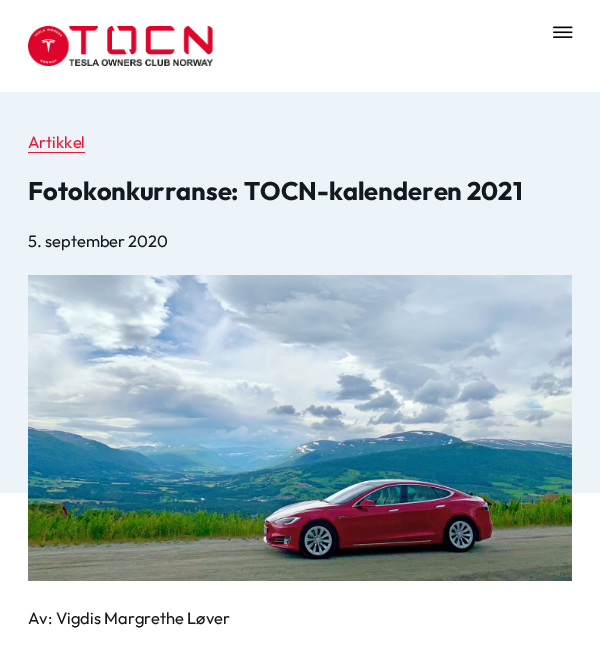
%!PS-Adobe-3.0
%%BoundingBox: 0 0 600 663
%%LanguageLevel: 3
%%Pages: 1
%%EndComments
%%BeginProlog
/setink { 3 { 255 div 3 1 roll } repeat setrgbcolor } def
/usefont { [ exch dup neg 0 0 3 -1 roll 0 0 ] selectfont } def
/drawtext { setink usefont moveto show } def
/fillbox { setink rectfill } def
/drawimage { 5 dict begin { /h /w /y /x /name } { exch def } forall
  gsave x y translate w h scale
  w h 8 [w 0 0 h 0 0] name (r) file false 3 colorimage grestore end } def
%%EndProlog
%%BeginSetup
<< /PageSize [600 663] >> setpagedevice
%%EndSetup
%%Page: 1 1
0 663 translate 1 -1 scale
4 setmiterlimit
0 0 600 663 255 255 255 fillbox
(assets/img1.rgb) 28 26 185 40 drawimage
(assets/img2.rgb) 553 26 20 12 drawimage
0 92 600 401 236 243 249 fillbox
(Artikkel) 28 148 /Outfit-Regular 16.5 227 25 55 drawtext
28 152 57 1 227 25 55 fillbox
(Fotokonkurranse: TOCN-kalenderen 2021) 28 200 /Outfit-Bold 25.5 21 24 30 drawtext
(5. september 2020) 28 247 /Outfit-Regular 16.5 21 24 30 drawtext
(assets/img3.rgb) 28 275 544 306 drawimage
(Av: Vigdis Margrethe Løver) 28 624 /Outfit-Regular 16.5 21 24 30 drawtext
showpage
%%EOF
